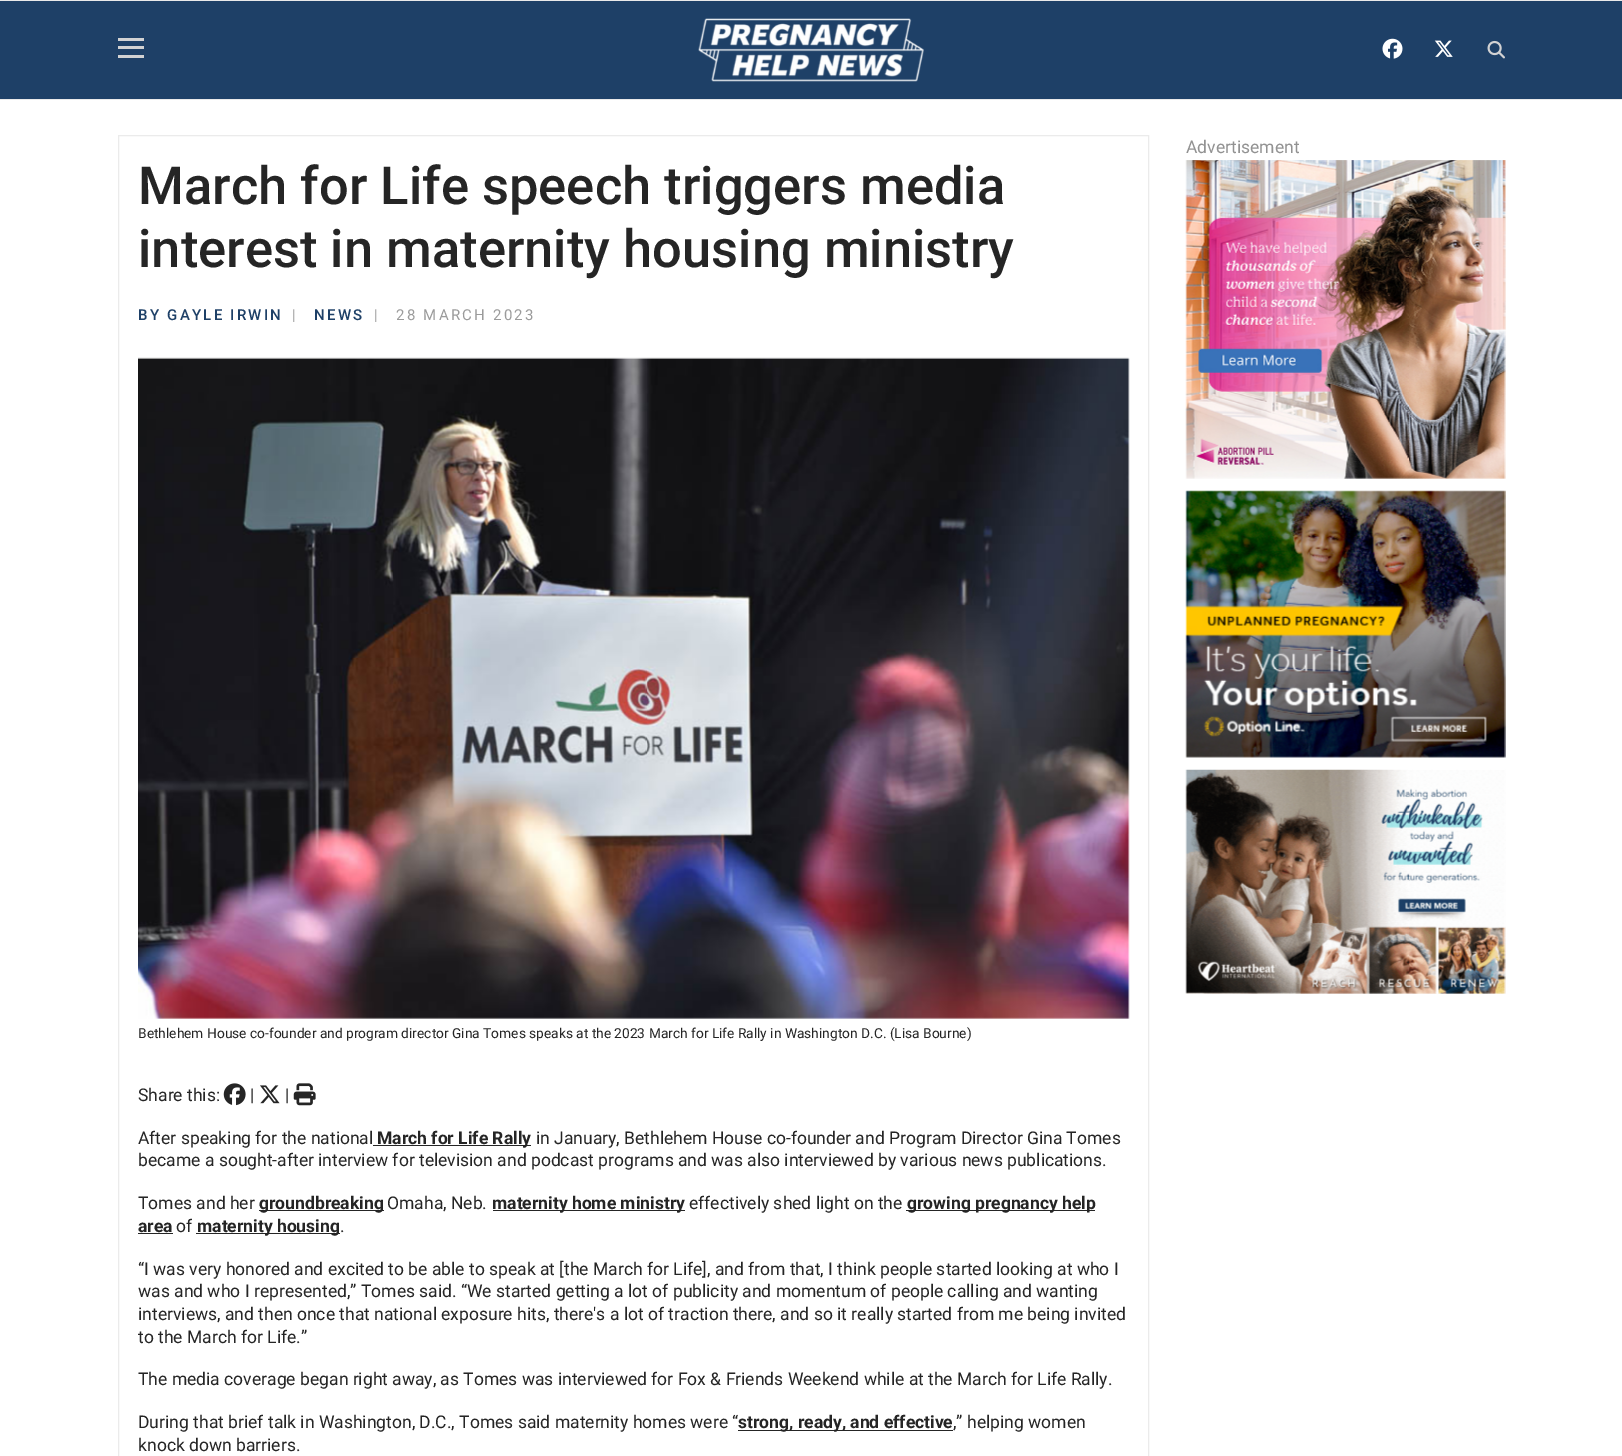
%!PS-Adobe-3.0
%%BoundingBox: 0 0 1622 1456
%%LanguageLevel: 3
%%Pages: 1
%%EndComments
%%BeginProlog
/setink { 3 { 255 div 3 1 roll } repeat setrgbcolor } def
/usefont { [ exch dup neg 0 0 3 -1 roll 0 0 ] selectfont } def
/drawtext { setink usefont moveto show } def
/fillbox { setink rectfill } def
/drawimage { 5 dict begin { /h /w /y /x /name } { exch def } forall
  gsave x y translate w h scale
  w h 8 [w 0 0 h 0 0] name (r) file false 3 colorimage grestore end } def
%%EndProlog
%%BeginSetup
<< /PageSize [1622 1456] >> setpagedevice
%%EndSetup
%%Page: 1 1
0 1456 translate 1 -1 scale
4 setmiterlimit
0 0 1622 1456 255 255 255 fillbox
0 1 1622 98 30 64 103 fillbox
0 0 1622 1 234 234 234 fillbox
0 99 1622 1 234 234 234 fillbox
118 38 26 3 210 210 211 fillbox
118 46 26 3 210 210 211 fillbox
118 55 26 3 210 210 211 fillbox
(assets/img1.rgb) 698 18 226 64 drawimage
(assets/img2.rgb) 1382 38 21 21 drawimage
(assets/img3.rgb) 1434 40 19 17 drawimage
(assets/img4.rgb) 1487 40 18 19 drawimage
(Advertisement) 1186 153 /Roboto-Regular 17.5 146 146 146 drawtext
(assets/img5.rgb) 1185 160 321 319 drawimage
(assets/img6.rgb) 1185 490 321 268 drawimage
(assets/img7.rgb) 1185 769 321 225 drawimage
235 235 235 setink
118.5 135.5 1030 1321 rectstroke
(March for Life speech triggers media) 138 204 /Roboto-Medium 52.5 37 37 37 drawtext
(interest in maternity housing ministry) 138 267 /Roboto-Medium 52.5 37 37 37 drawtext
/Roboto-Medium 15 usefont
30 64 103 setink
138 320 moveto 2.25 0 (BY GAYLE IRWIN) ashow
/Roboto-Regular 15 usefont
155 155 155 setink
292 320 moveto 2.25 0 (|) ashow
/Roboto-Medium 15 usefont
30 64 103 setink
314 320 moveto 2.25 0 (NEWS) ashow
/Roboto-Regular 15 usefont
155 155 155 setink
374 320 moveto 2.25 0 (|) ashow
396 320 moveto 2.25 0 (28 MARCH 2023) ashow
(assets/img8.rgb) 138 357 992 662 drawimage
(Bethlehem House co-founder and program director Gina Tomes speaks at the 2023 March for Life Rally in Washington D.C. \(Lisa Bourne\)) 138 1038 /Roboto-Regular 13.75 37 37 37 drawtext
(Share this:) 138 1101 /Roboto-Regular 17.5 37 37 37 drawtext
(assets/img9.rgb) 223 1083 23 23 drawimage
(|) 250 1101 /Roboto-Regular 17.5 37 37 37 drawtext
(assets/img10.rgb) 260 1085 20 19 drawimage
(|) 285 1101 /Roboto-Regular 17.5 37 37 37 drawtext
(assets/img11.rgb) 293 1083 23 23 drawimage
(After speaking for the national) 138 1144 /Roboto-Regular 17.5 37 37 37 drawtext
373 1145 158 1 37 37 37 fillbox
(March for Life Rally) 377 1144 /Roboto-Bold 17.5 37 37 37 drawtext
(in January, Bethlehem House co-founder and Program Director Gina Tomes) 536 1144 /Roboto-Regular 17.5 37 37 37 drawtext
(became a sought-after interview for television and podcast programs and was also interviewed by various news publications.) 138 1166 /Roboto-Regular 17.5 37 37 37 drawtext
(Tomes and her) 138 1209 /Roboto-Regular 17.5 37 37 37 drawtext
259 1210 125 1 37 37 37 fillbox
(groundbreaking) 259 1209 /Roboto-Bold 17.5 37 37 37 drawtext
(Omaha, Neb.) 387 1209 /Roboto-Regular 17.5 37 37 37 drawtext
493 1210 192 1 37 37 37 fillbox
(maternity home ministry) 492 1209 /Roboto-Bold 17.5 37 37 37 drawtext
(effectively shed light on the) 689 1209 /Roboto-Regular 17.5 37 37 37 drawtext
906 1210 189 1 37 37 37 fillbox
(growing pregnancy help) 907 1209 /Roboto-Bold 17.5 37 37 37 drawtext
(area) 138 1232 /Roboto-Bold 17.5 37 37 37 drawtext
138 1233 35 1 37 37 37 fillbox
(of) 176 1232 /Roboto-Regular 17.5 37 37 37 drawtext
196 1233 144 1 37 37 37 fillbox
(maternity housing) 197 1232 /Roboto-Bold 17.5 37 37 37 drawtext
(.) 340 1232 /Roboto-Regular 17.5 37 37 37 drawtext
(“I was very honored and excited to be able to speak at [the March for Life], and from that, I think people started looking at who I) 138 1275 /Roboto-Regular 17.5 37 37 37 drawtext
(was and who I represented,” Tomes said. “We started getting a lot of publicity and momentum of people calling and wanting) 138 1297 /Roboto-Regular 17.5 37 37 37 drawtext
(interviews, and then once that national exposure hits, there's a lot of traction there, and so it really started from me being invited) 138 1320 /Roboto-Regular 17.5 37 37 37 drawtext
(to the March for Life.”) 138 1343 /Roboto-Regular 17.5 37 37 37 drawtext
(The media coverage began right away, as Tomes was interviewed for Fox & Friends Weekend while at the March for Life Rally.) 138 1385 /Roboto-Regular 17.5 37 37 37 drawtext
(During that brief talk in Washington, D.C., Tomes said maternity homes were “) 138 1428 /Roboto-Regular 17.5 37 37 37 drawtext
738 1430 215 1 37 37 37 fillbox
(strong, ready, and effective) 738 1428 /Roboto-Bold 17.5 37 37 37 drawtext
(,” helping women) 953 1428 /Roboto-Regular 17.5 37 37 37 drawtext
(knock down barriers.) 138 1451 /Roboto-Regular 17.5 37 37 37 drawtext
showpage
%%EOF
